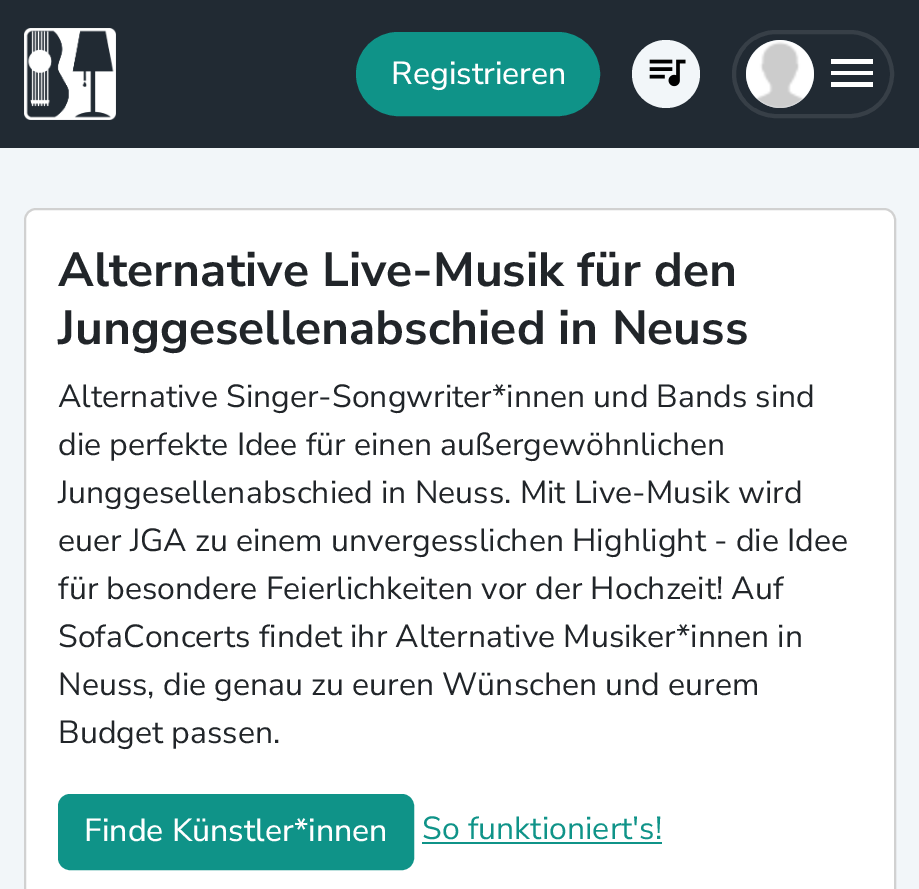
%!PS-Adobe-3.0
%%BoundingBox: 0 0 919 889
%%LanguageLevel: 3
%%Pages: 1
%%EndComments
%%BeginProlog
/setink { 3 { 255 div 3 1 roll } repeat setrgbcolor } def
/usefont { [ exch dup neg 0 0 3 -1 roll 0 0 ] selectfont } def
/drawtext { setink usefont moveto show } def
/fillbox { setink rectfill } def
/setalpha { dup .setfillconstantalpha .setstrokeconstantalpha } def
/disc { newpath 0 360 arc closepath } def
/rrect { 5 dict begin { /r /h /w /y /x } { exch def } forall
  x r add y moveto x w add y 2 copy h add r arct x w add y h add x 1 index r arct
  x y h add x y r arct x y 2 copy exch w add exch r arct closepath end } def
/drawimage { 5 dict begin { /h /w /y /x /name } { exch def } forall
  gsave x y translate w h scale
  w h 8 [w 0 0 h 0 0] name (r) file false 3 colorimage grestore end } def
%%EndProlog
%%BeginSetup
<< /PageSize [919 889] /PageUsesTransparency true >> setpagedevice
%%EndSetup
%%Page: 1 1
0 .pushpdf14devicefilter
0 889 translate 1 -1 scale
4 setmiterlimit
0 0 919 889 242 246 249 fillbox
0 0 919 148 33 42 51 fillbox
(assets/img1.rgb) 24 28 92 92 drawimage
15 147 136 setink
357 33 242 82 41 rrect gsave fill grestore
2 setlinewidth
stroke
(Registrieren) 391 84 /NunitoSans-Medium 32 255 255 255 drawtext
242 246 249 setink
666 74 34 disc fill
(assets/img2.rgb) 649 59 37 28 drawimage
55 63 71 setink
4 setlinewidth
734 32 158 84 42 rrect stroke
242 246 249 setink
780 74 34 disc fill
(assets/img3.rgb) 746 40 68 68 drawimage
255 255 255 setink
831 59 moveto 873 59 lineto 873 64 lineto 831 64 lineto closepath 831 71 moveto 873 71 lineto 873 75 lineto 831 75 lineto closepath 831 82 moveto 873 82 lineto 873 87 lineto 831 87 lineto closepath fill
24 208 872 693 12 rrect fill
0.18 setalpha
0 0 0 setink
2 setlinewidth
25 209 870 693 11 rrect stroke
1 setalpha
(Alternative Live-Musik für den) 58 286 /NunitoSans-Bold 48 33 37 41 drawtext
(Junggesellenabschied in Neuss) 58 344 /NunitoSans-Bold 48 33 37 41 drawtext
(Alternative Singer-Songwriter*innen und Bands sind) 58 407 /NunitoSans-Regular 32 33 37 41 drawtext
(die perfekte Idee für einen außergewöhnlichen) 58 455 /NunitoSans-Regular 32 33 37 41 drawtext
(Junggesellenabschied in Neuss. Mit Live-Musik wird) 58 503 /NunitoSans-Regular 32 33 37 41 drawtext
(euer JGA zu einem unvergesslichen Highlight - die Idee) 58 551 /NunitoSans-Regular 32 33 37 41 drawtext
(für besondere Feierlichkeiten vor der Hochzeit! Auf) 58 599 /NunitoSans-Regular 32 33 37 41 drawtext
(SofaConcerts findet ihr Alternative Musiker*innen in) 58 647 /NunitoSans-Regular 32 33 37 41 drawtext
(Neuss, die genau zu euren Wünschen und eurem) 58 695 /NunitoSans-Regular 32 33 37 41 drawtext
(Budget passen.) 58 743 /NunitoSans-Regular 32 33 37 41 drawtext
15 147 136 setink
59 795 354 74 11 rrect gsave fill grestore
stroke
(Finde Künstler*innen) 84 841 /NunitoSans-Medium 32 255 255 255 drawtext
(So funktioniert's!) 422 839 /NunitoSans-Regular 32 15 147 136 drawtext
422 842 240 2 15 147 136 fillbox
.poppdf14devicefilter showpage
%%EOF
